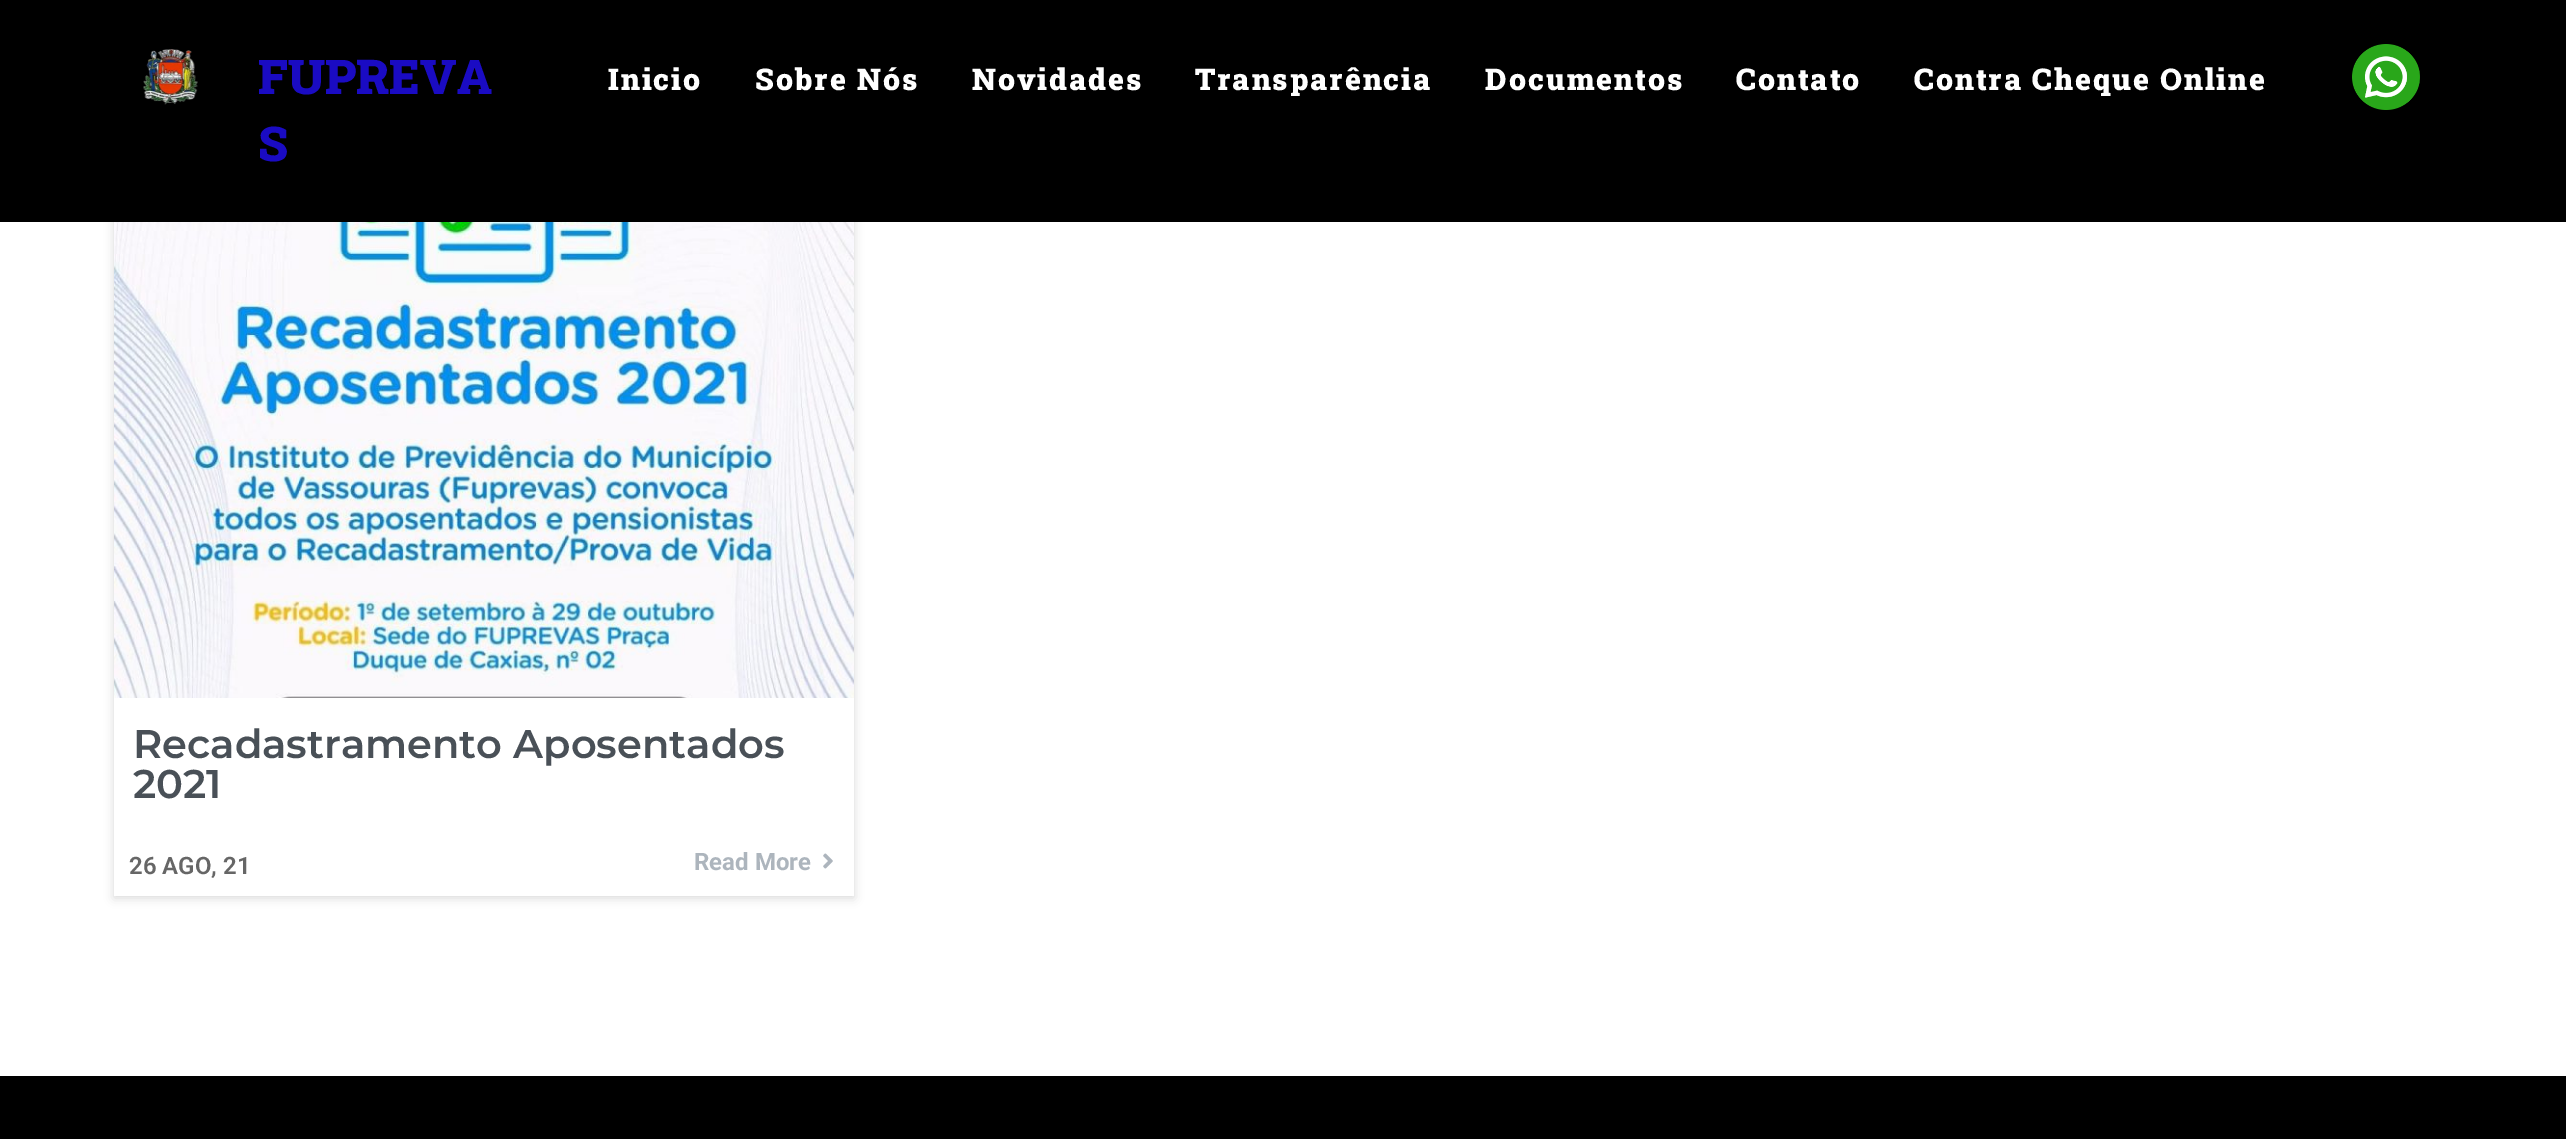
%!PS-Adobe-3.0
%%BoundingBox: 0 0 2566 1139
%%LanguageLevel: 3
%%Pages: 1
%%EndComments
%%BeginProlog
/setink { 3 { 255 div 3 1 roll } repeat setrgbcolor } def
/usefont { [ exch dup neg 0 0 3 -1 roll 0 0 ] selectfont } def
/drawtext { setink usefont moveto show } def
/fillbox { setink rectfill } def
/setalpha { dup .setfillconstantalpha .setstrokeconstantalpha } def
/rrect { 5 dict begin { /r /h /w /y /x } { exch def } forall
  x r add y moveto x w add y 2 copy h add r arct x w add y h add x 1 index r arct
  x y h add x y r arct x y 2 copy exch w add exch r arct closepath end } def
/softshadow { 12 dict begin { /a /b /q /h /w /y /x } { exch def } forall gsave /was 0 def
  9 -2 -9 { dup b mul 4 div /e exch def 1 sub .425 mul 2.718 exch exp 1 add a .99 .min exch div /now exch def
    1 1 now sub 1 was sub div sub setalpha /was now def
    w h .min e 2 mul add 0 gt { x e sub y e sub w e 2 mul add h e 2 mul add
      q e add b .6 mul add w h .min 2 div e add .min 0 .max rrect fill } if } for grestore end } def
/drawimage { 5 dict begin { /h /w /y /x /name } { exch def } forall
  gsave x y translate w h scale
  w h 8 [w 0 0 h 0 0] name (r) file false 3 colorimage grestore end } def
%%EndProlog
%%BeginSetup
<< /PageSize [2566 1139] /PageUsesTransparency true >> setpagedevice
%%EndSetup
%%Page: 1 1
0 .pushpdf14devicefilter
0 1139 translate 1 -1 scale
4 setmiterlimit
0 0 2566 1139 255 255 255 fillbox
gsave
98 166 moveto 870 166 lineto 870 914 lineto 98 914 lineto closepath 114 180 moveto 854 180 lineto 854 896 lineto 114 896 lineto closepath eoclip newpath
0 0 0 setink
114 182 740 716 0 5 0.15 softshadow
grestore
0 0 2566 222 0 0 0 fillbox
(assets/img1.rgb) 143 49 55 56 drawimage
(FUPREVA) 258 94 /RobotoSlab-Black 48 26 11 195 drawtext
(S) 258 161 /RobotoSlab-Black 48 26 11 195 drawtext
/RobotoSlab-Black 30 usefont
255 255 255 setink
608 90 moveto 2 0 (Inicio) ashow
755 90 moveto 2 0 (Sobre Nós) ashow
972 90 moveto 2 0 (Novidades) ashow
1195 90 moveto 2 0 (Transparência) ashow
1485 90 moveto 2 0 (Documentos) ashow
1736 90 moveto 2 0 (Contato) ashow
1914 90 moveto 2 0 (Contra Cheque Online) ashow
(assets/img2.rgb) 2352 44 68 66 drawimage
(assets/img3.rgb) 114 222 740 476 drawimage
(Recadastramento Aposentados) 133 758 /Montserrat-SemiBold 40 73 80 87 drawtext
(2021) 133 798 /Montserrat-SemiBold 40 73 80 87 drawtext
(26 AGO, 21) 129 874 /Roboto-SemiBold 24 102 102 102 drawtext
(Read More) 694 870 /Roboto-Bold 24 173 181 189 drawtext
(assets/img4.rgb) 823 853 10 16 drawimage
0 1076 2566 63 0 0 0 fillbox
.poppdf14devicefilter showpage
%%EOF
